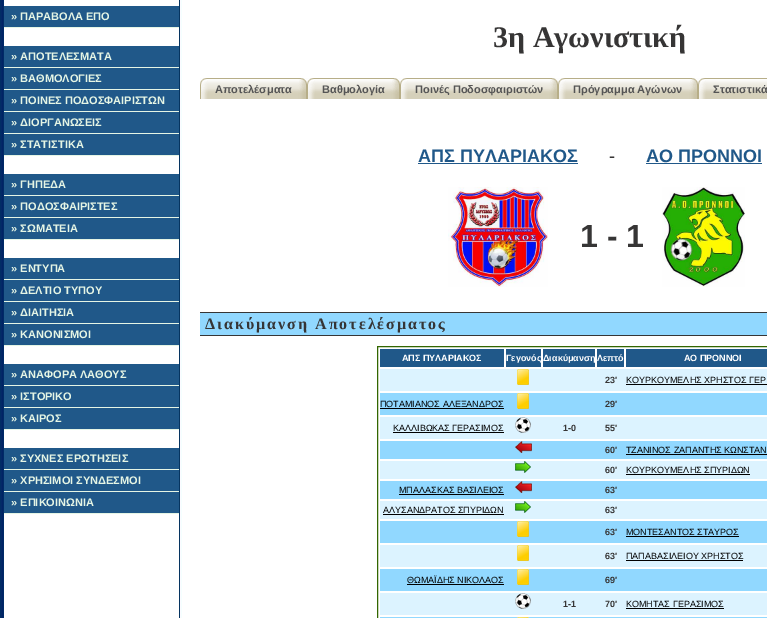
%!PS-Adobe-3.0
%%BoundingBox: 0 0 767 618
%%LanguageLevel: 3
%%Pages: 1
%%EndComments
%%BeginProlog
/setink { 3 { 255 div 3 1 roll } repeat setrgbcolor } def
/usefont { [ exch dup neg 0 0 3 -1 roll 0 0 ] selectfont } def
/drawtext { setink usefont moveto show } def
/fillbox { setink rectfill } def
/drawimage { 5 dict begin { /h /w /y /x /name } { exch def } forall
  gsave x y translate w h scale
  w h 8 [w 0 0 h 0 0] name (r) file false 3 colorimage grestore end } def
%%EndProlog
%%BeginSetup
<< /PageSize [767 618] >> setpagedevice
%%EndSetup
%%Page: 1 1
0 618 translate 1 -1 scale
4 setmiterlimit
0 0 767 618 255 255 255 fillbox
(assets/img1.rgb) 0 0 182 618 drawimage
4 6 175 21 32 88 137 fillbox
4 27 175 1 229 245 229 fillbox
(» ΠΑΡΑΒΟΛΑ ΕΠΟ) 11 20 /LiberationSans-Bold 11 229 245 229 drawtext
4 46 175 21 32 88 137 fillbox
4 67 175 1 229 245 229 fillbox
(» ΑΠΟΤΕΛΕΣΜΑΤΑ) 11 60 /LiberationSans-Bold 11 229 245 229 drawtext
4 68 175 21 32 88 137 fillbox
4 89 175 1 229 245 229 fillbox
(» ΒΑΘΜΟΛΟΓΙΕΣ) 11 82 /LiberationSans-Bold 11 229 245 229 drawtext
4 90 175 21 32 88 137 fillbox
4 111 175 1 229 245 229 fillbox
(» ΠΟΙΝΕΣ ΠΟΔΟΣΦΑΙΡΙΣΤΩΝ) 11 104 /LiberationSans-Bold 11 229 245 229 drawtext
4 112 175 21 32 88 137 fillbox
4 133 175 1 229 245 229 fillbox
(» ΔΙΟΡΓΑΝΩΣΕΙΣ) 11 126 /LiberationSans-Bold 11 229 245 229 drawtext
4 134 175 21 32 88 137 fillbox
4 155 175 1 229 245 229 fillbox
(» ΣΤΑΤΙΣΤΙΚΑ) 11 148 /LiberationSans-Bold 11 229 245 229 drawtext
4 174 175 21 32 88 137 fillbox
4 195 175 1 229 245 229 fillbox
(» ΓΗΠΕΔΑ) 11 188 /LiberationSans-Bold 11 229 245 229 drawtext
4 196 175 21 32 88 137 fillbox
4 217 175 1 229 245 229 fillbox
(» ΠΟΔΟΣΦΑΙΡΙΣΤΕΣ) 11 210 /LiberationSans-Bold 11 229 245 229 drawtext
4 218 175 21 32 88 137 fillbox
4 239 175 1 229 245 229 fillbox
(» ΣΩΜΑΤΕΙΑ) 11 232 /LiberationSans-Bold 11 229 245 229 drawtext
4 258 175 21 32 88 137 fillbox
4 279 175 1 229 245 229 fillbox
(» ΕΝΤΥΠΑ) 11 272 /LiberationSans-Bold 11 229 245 229 drawtext
4 280 175 21 32 88 137 fillbox
4 301 175 1 229 245 229 fillbox
(» ΔΕΛΤΙΟ ΤΥΠΟΥ) 11 294 /LiberationSans-Bold 11 229 245 229 drawtext
4 302 175 21 32 88 137 fillbox
4 323 175 1 229 245 229 fillbox
(» ΔΙΑΙΤΗΣΙΑ) 11 316 /LiberationSans-Bold 11 229 245 229 drawtext
4 324 175 21 32 88 137 fillbox
4 345 175 1 229 245 229 fillbox
(» ΚΑΝΟΝΙΣΜΟΙ) 11 338 /LiberationSans-Bold 11 229 245 229 drawtext
4 364 175 21 32 88 137 fillbox
4 385 175 1 229 245 229 fillbox
(» ΑΝΑΦΟΡΑ ΛΑΘΟΥΣ) 11 378 /LiberationSans-Bold 11 229 245 229 drawtext
4 386 175 21 32 88 137 fillbox
4 407 175 1 229 245 229 fillbox
(» ΙΣΤΟΡΙΚΟ) 11 400 /LiberationSans-Bold 11 229 245 229 drawtext
4 408 175 21 32 88 137 fillbox
4 429 175 1 229 245 229 fillbox
(» ΚΑΙΡΟΣ) 11 422 /LiberationSans-Bold 11 229 245 229 drawtext
4 448 175 21 32 88 137 fillbox
4 469 175 1 229 245 229 fillbox
(» ΣΥΧΝΕΣ ΕΡΩΤΗΣΕΙΣ) 11 462 /LiberationSans-Bold 11 229 245 229 drawtext
4 470 175 21 32 88 137 fillbox
4 491 175 1 229 245 229 fillbox
(» ΧΡΗΣΙΜΟΙ ΣΥΝΔΕΣΜΟΙ) 11 484 /LiberationSans-Bold 11 229 245 229 drawtext
4 492 175 21 32 88 137 fillbox
4 513 175 1 229 245 229 fillbox
(» ΕΠΙΚΟΙΝΩΝΙΑ) 11 506 /LiberationSans-Bold 11 229 245 229 drawtext
(3η Αγωνιστική) 493 47 /LiberationSerif-Bold 30 54 53 53 drawtext
(assets/img2.rgb) 208 78 99 21 drawimage
(assets/img3.rgb) 200 78 8 21 drawimage
(Αποτελέσματα) 215 93 /LiberationSans-Bold 11 85 85 85 drawtext
(assets/img4.rgb) 315 78 85 21 drawimage
(assets/img3.rgb) 307 78 8 21 drawimage
(Βαθμολογία) 322 93 /LiberationSans-Bold 11 85 85 85 drawtext
(assets/img5.rgb) 408 78 150 21 drawimage
(assets/img3.rgb) 400 78 8 21 drawimage
(Ποινές Ποδοσφαιριστών) 415 93 /LiberationSans-Bold 11 85 85 85 drawtext
(assets/img6.rgb) 566 78 132 21 drawimage
(assets/img3.rgb) 558 78 8 21 drawimage
(Πρόγραμμα Αγώνων) 573 93 /LiberationSans-Bold 11 85 85 85 drawtext
(assets/img7.rgb) 706 78 61 21 drawimage
(assets/img3.rgb) 698 78 8 21 drawimage
(Στατιστικά) 713 93 /LiberationSans-Bold 11 85 85 85 drawtext
(ΑΠΣ ΠΥΛΑΡΙΑΚΟΣ) 418 162 /LiberationSans-Bold 18 32 88 137 drawtext
418 163 160 1 32 88 137 fillbox
(-) 609 162 /LiberationSans-Regular 18 54 53 53 drawtext
(ΑΟ ΠΡΟΝΝΟΙ) 646 162 /LiberationSans-Bold 18 32 88 137 drawtext
646 163 116 1 32 88 137 fillbox
(assets/img8.rgb) 448 187 100 100 drawimage
(1 - 1) 580 247 /LiberationSans-Bold 32 54 53 53 drawtext
(assets/img9.rgb) 662 187 83 100 drawimage
200 313 567 22 145 216 255 fillbox
200 312 567 1 54 54 54 fillbox
200 335 567 1 54 54 54 fillbox
/LiberationSerif-Bold 16 usefont
54 53 53 setink
205 329 moveto 2 0 (Διακύμανση Αποτελέσματος) ashow
51 102 0 setink
377.5 346.5 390 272 rectstroke
380 349 124 18 32 88 137 fillbox
(ΑΠΣ ΠΥΛΑΡΙΑΚΟΣ) 402 361 /LiberationSans-Bold 9 255 255 255 drawtext
506 349 35 18 32 88 137 fillbox
(Γεγονός) 506 361 /LiberationSans-Bold 9 255 255 255 drawtext
543 349 52 18 32 88 137 fillbox
(Διακύμανση) 543 361 /LiberationSans-Bold 9 255 255 255 drawtext
597 349 27 18 32 88 137 fillbox
(Λεπτό) 597 361 /LiberationSans-Bold 9 255 255 255 drawtext
626 349 141 18 32 88 137 fillbox
(ΑΟ ΠΡΟΝΝΟΙ) 684 361 /LiberationSans-Bold 9 255 255 255 drawtext
380 369 387 22 220 243 255 fillbox
(assets/img10.rgb) 517 369 12 16 drawimage
(23') 605 383 /LiberationSans-Bold 9 54 53 53 drawtext
(ΚΟΥΡΚΟΥΜΕΛΗΣ ΧΡΗΣΤΟΣ ΓΕΡ) 626 383 /LiberationSans-Regular 9 0 0 0 drawtext
626 384 141 1 0 0 0 fillbox
380 393 387 22 145 216 255 fillbox
(ΠΟΤΑΜΙΑΝΟΣ ΑΛΕΞΑΝΔΡΟΣ) 380 407 /LiberationSans-Regular 9 0 0 0 drawtext
380 408 124 1 0 0 0 fillbox
(assets/img11.rgb) 517 393 12 16 drawimage
(29') 605 407 /LiberationSans-Bold 9 54 53 53 drawtext
380 417 387 22 220 243 255 fillbox
(ΚΑΛΛΙΒΩΚΑΣ ΓΕΡΑΣΙΜΟΣ) 393 431 /LiberationSans-Regular 9 0 0 0 drawtext
393 432 111 1 0 0 0 fillbox
(assets/img12.rgb) 515 417 16 16 drawimage
(1-0) 563 431 /LiberationSans-Bold 9 54 53 53 drawtext
(55') 605 431 /LiberationSans-Bold 9 54 53 53 drawtext
380 441 387 18 145 216 255 fillbox
(assets/img13.rgb) 515 441 17 12 drawimage
(60') 605 453 /LiberationSans-Bold 9 54 53 53 drawtext
(ΤΖΑΝΙΝΟΣ ΖΑΠΑΝΤΗΣ ΚΩΝΣΤΑΝ) 626 453 /LiberationSans-Regular 9 0 0 0 drawtext
626 454 141 1 0 0 0 fillbox
380 461 387 18 220 243 255 fillbox
(assets/img14.rgb) 515 461 16 12 drawimage
(60') 605 473 /LiberationSans-Bold 9 54 53 53 drawtext
(ΚΟΥΡΚΟΥΜΕΛΗΣ ΣΠΥΡΙΔΩΝ) 626 473 /LiberationSans-Regular 9 0 0 0 drawtext
626 474 124 1 0 0 0 fillbox
380 481 387 18 145 216 255 fillbox
(ΜΠΑΛΑΣΚΑΣ ΒΑΣΙΛΕΙΟΣ) 399 493 /LiberationSans-Regular 9 0 0 0 drawtext
399 494 105 1 0 0 0 fillbox
(assets/img13.rgb) 515 481 17 12 drawimage
(63') 605 493 /LiberationSans-Bold 9 54 53 53 drawtext
380 501 387 18 220 243 255 fillbox
(ΑΛΥΣΑΝΔΡΑΤΟΣ ΣΠΥΡΙΔΩΝ) 383 513 /LiberationSans-Regular 9 0 0 0 drawtext
383 514 121 1 0 0 0 fillbox
(assets/img14.rgb) 515 501 16 12 drawimage
(63') 605 513 /LiberationSans-Bold 9 54 53 53 drawtext
380 521 387 22 145 216 255 fillbox
(assets/img11.rgb) 517 521 12 16 drawimage
(63') 605 535 /LiberationSans-Bold 9 54 53 53 drawtext
(ΜΟΝΤΕΣΑΝΤΟΣ ΣΤΑΥΡΟΣ) 626 535 /LiberationSans-Regular 9 0 0 0 drawtext
626 536 113 1 0 0 0 fillbox
380 545 387 22 220 243 255 fillbox
(assets/img10.rgb) 517 545 12 16 drawimage
(63') 605 559 /LiberationSans-Bold 9 54 53 53 drawtext
(ΠΑΠΑΒΑΣΙΛΕΙΟΥ ΧΡΗΣΤΟΣ) 626 559 /LiberationSans-Regular 9 0 0 0 drawtext
626 560 117 1 0 0 0 fillbox
380 569 387 22 145 216 255 fillbox
(ΘΩΜΑΪΔΗΣ ΝΙΚΟΛΑΟΣ) 407 583 /LiberationSans-Regular 9 0 0 0 drawtext
407 584 97 1 0 0 0 fillbox
(assets/img11.rgb) 517 569 12 16 drawimage
(69') 605 583 /LiberationSans-Bold 9 54 53 53 drawtext
380 593 387 22 220 243 255 fillbox
(assets/img12.rgb) 515 593 16 16 drawimage
(1-1) 563 607 /LiberationSans-Bold 9 54 53 53 drawtext
(70') 605 607 /LiberationSans-Bold 9 54 53 53 drawtext
(ΚΟΜΗΤΑΣ ΓΕΡΑΣΙΜΟΣ) 626 607 /LiberationSans-Regular 9 0 0 0 drawtext
626 608 98 1 0 0 0 fillbox
380 617 387 1 145 216 255 fillbox
(assets/img15.rgb) 517 617 12 1 drawimage
showpage
%%EOF
